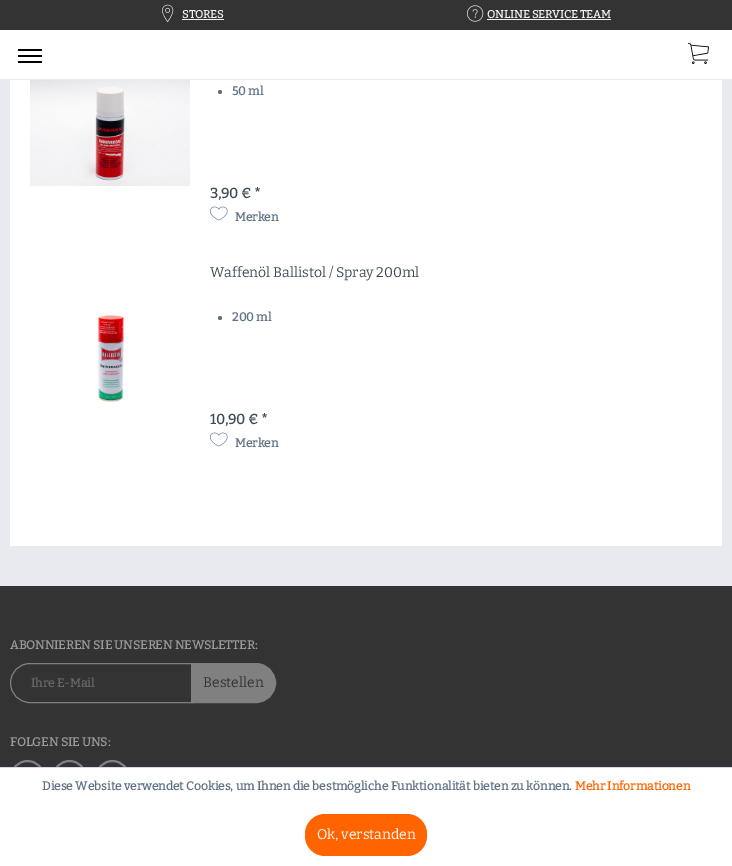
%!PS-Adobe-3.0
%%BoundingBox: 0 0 732 866
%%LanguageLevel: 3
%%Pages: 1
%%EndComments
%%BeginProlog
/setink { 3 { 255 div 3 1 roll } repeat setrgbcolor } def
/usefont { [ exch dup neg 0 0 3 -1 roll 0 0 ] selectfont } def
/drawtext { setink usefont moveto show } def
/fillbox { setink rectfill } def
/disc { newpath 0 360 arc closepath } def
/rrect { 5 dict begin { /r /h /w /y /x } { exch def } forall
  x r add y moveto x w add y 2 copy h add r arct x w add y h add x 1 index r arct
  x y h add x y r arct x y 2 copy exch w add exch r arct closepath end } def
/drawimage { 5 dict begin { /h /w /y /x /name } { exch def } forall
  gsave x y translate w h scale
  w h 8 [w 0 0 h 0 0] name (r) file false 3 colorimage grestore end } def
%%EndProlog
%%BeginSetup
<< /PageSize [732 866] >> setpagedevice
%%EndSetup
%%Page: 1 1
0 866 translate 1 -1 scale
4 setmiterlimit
0 0 732 866 233 233 240 fillbox
0 30 732 49 255 255 255 fillbox
0 0 732 30 51 51 51 fillbox
(assets/img1.rgb) 162 4 12 19 drawimage
(STORES) 182 18 /Bitter-Bold 11 242 242 242 drawtext
182 19 42 1 242 242 242 fillbox
(assets/img2.rgb) 467 5 17 17 drawimage
(ONLINE SERVICE TEAM) 487 18 /Bitter-Bold 11 242 242 242 drawtext
487 19 124 1 242 242 242 fillbox
0 79 732 1 235 235 235 fillbox
18 55 24 2 0 0 0 fillbox
18 49 24 2 0 0 0 fillbox
18 61 24 2 0 0 0 fillbox
(assets/img3.rgb) 688 43 21 21 drawimage
10 80 712 466 255 255 255 fillbox
(assets/img4.rgb) 30 80 160 106 drawimage
95 114 133 setink
220 92 2 disc fill
(50 ml) 232 95 /Bitter-Bold 12 95 114 133 drawtext
(3,90 € *) 210 198 /Bitter-Bold 14 63 76 88 drawtext
(assets/img5.rgb) 210 206 18 15 drawimage
(Merken) 235 221 /Bitter-Bold 12 95 114 133 drawtext
(Waffenöl Ballistol / Spray 200ml) 210 277 /Bitter-Thin 14 63 76 88 drawtext
(assets/img6.rgb) 97 315 27 87 drawimage
95 114 133 setink
220 318 2 disc fill
(200 ml) 232 321 /Bitter-Bold 12 95 114 133 drawtext
(10,90 € *) 210 424 /Bitter-Bold 14 63 76 88 drawtext
(assets/img5.rgb) 210 432 18 15 drawimage
(Merken) 235 447 /Bitter-Bold 12 95 114 133 drawtext
0 586 732 181 51 51 51 fillbox
(ABONNIEREN SIE UNSEREN NEWSLETTER:) 10 649 /Bitter-Bold 12 154 154 154 drawtext
128 128 128 setink
30 663.5 moveto 192.5 663.5 lineto 192.5 702.5 lineto 30 702.5 lineto 19 702.5 10.5 694 10.5 683 curveto 10.5 672 19 663.5 30 663.5 curveto closepath stroke
(Ihre E-Mail) 31 687 /Bitter-Bold 12 103 103 103 drawtext
128 128 128 setink
192 664 moveto 256 664 lineto 266.5 664 275 672.5 275 683 curveto 275 693.5 266.5 702 256 702 curveto 192 702 lineto closepath gsave fill grestore
2 setlinewidth
stroke
(Bestellen) 203 687 /Bitter-Thin 14 51 51 51 drawtext
(FOLGEN SIE UNS:) 10 746 /Bitter-Bold 12 154 154 154 drawtext
128 128 128 setink
27.5 777.5 16.5 disc stroke
69.5 777.5 16.5 disc stroke
112.5 777.5 16.5 disc stroke
0 768 732 98 255 255 255 fillbox
0 767 732 1 218 218 229 fillbox
(Diese Website verwendet Cookies, um Ihnen die bestmögliche Funktionalität bieten zu können.) 42 790 /Bitter-Bold 12 95 114 133 drawtext
(Mehr Informationen) 575 790 /Bitter-Bold 12 255 100 0 drawtext
305 814 122 42 20 rrect fill
(Ok, verstanden) 317 839 /Bitter-Thin 14 255 255 255 drawtext
showpage
%%EOF
